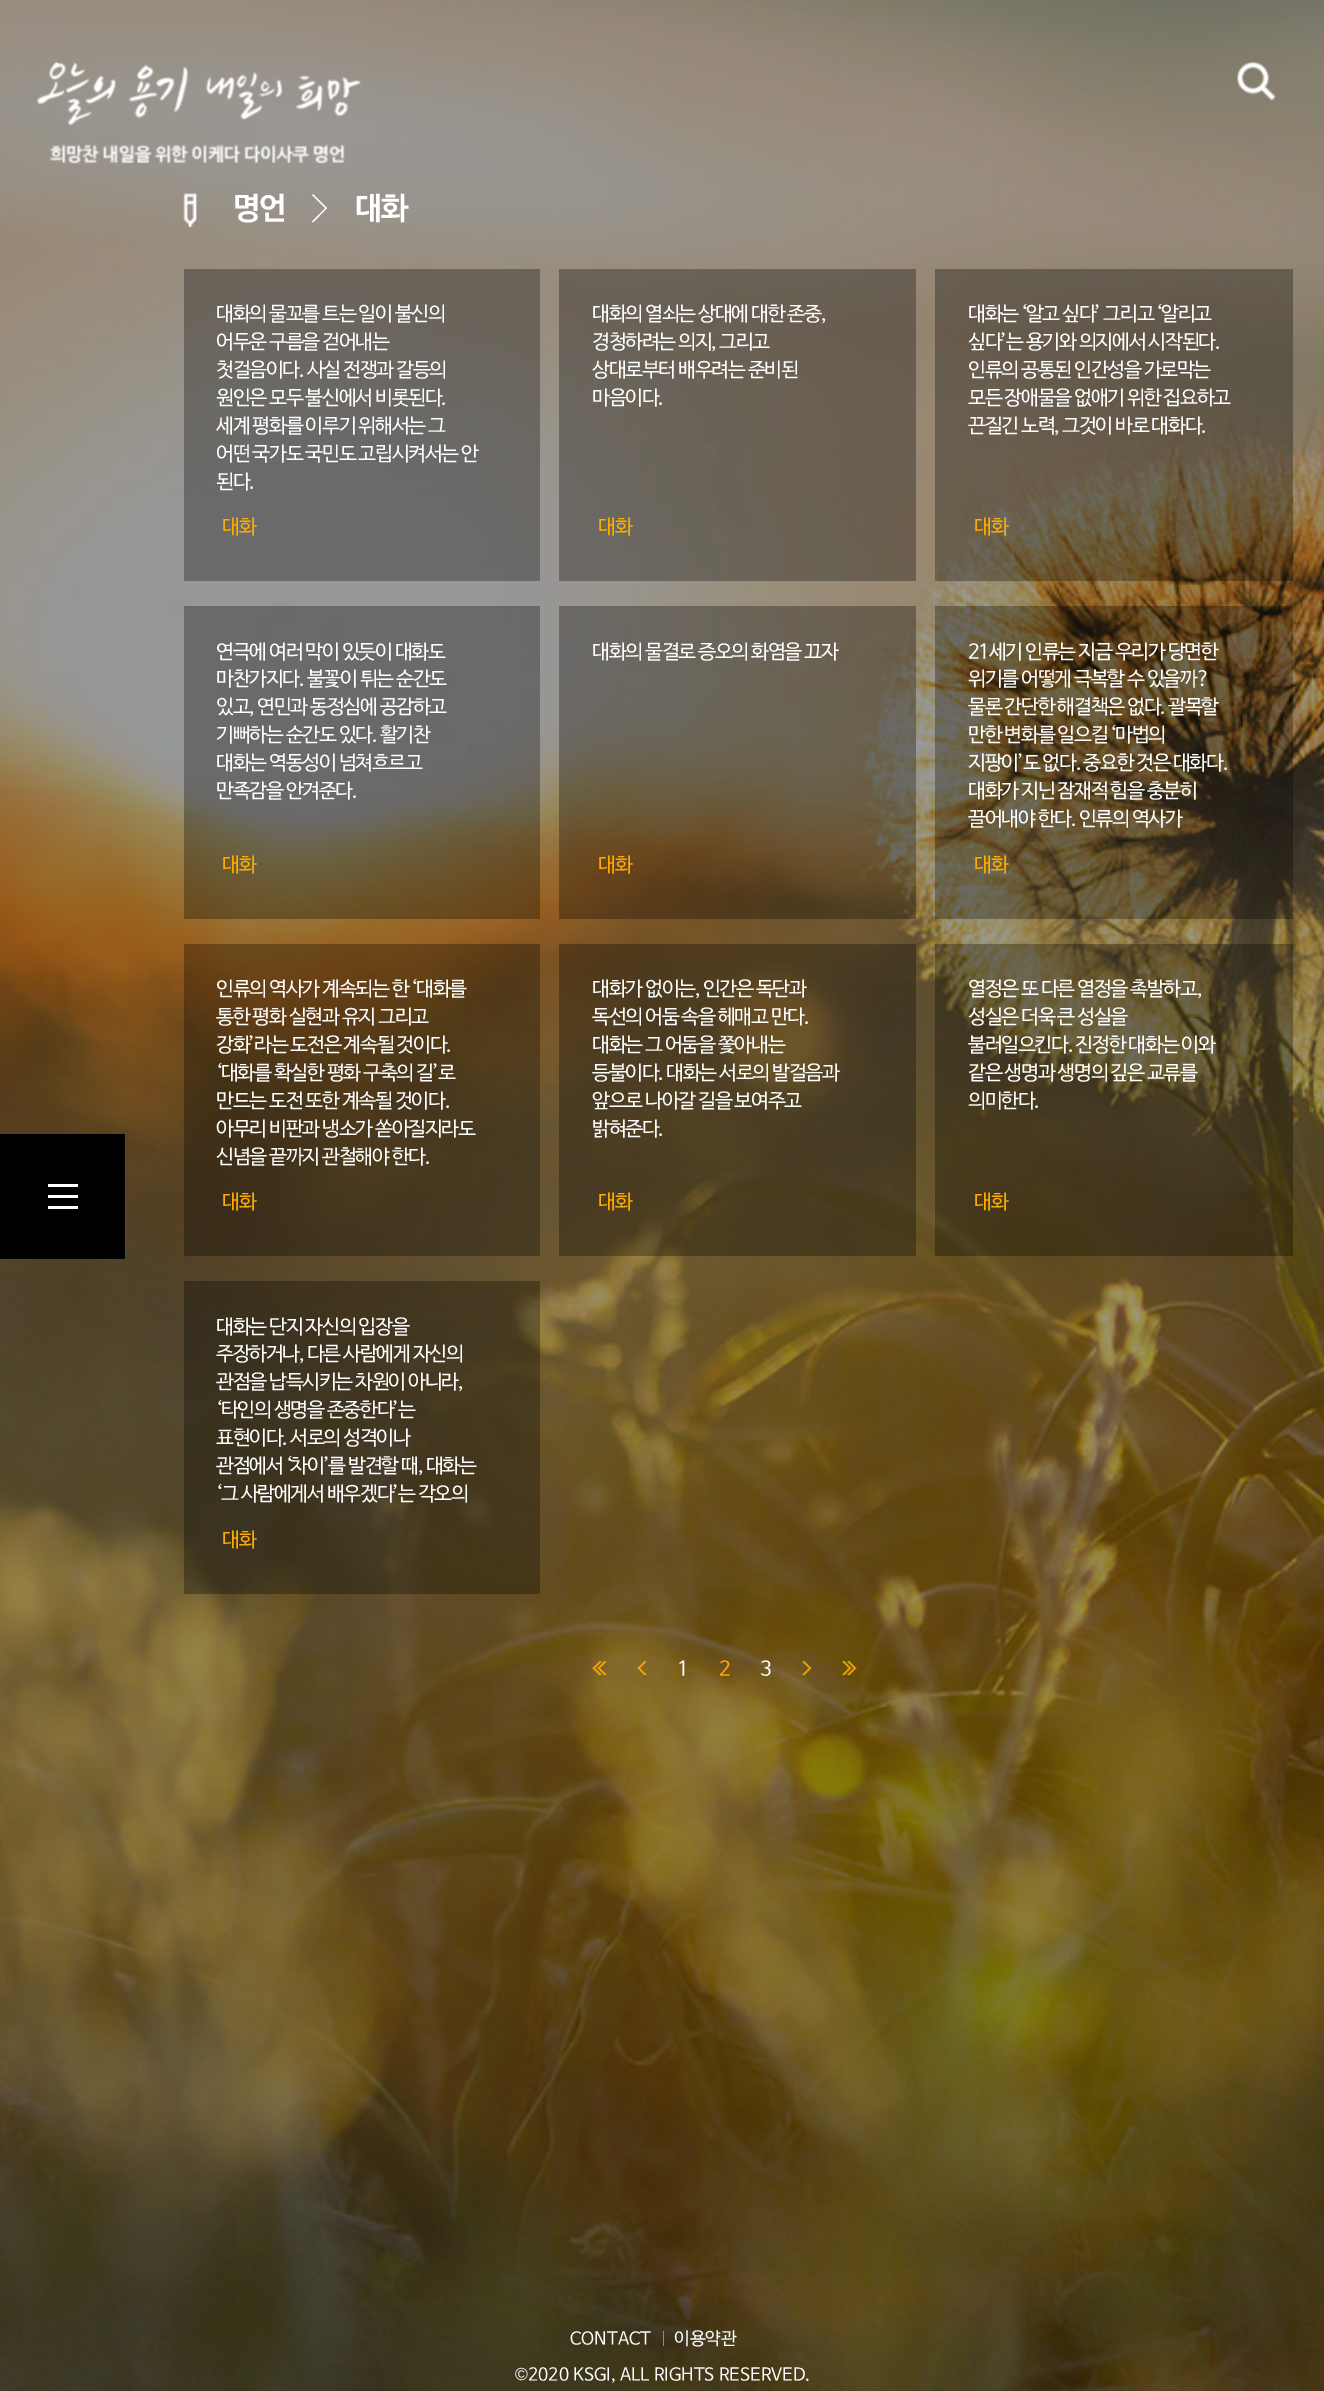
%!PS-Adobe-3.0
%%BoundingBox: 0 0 1324 2391
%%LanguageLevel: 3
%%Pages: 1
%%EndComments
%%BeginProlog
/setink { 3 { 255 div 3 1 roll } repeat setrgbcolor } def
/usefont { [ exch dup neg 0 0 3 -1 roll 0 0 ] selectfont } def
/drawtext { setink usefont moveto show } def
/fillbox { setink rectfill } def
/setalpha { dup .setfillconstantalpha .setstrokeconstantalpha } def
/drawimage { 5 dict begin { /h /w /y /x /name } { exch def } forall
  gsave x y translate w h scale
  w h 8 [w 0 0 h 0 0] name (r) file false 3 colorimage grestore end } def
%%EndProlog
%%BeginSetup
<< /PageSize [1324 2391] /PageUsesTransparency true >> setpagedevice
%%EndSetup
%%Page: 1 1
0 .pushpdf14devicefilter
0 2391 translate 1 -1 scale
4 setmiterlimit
0 0 1324 2391 255 255 255 fillbox
(assets/img3.rgb) 0 0 1324 2391 drawimage
(assets/img1.rgb) 37 62 324 102 drawimage
(assets/img2.rgb) 1237 62 39 39 drawimage
0 1134 125 125 0 0 0 fillbox
48 1184 30 3 255 255 255 fillbox
48 1195 30 3 255 255 255 fillbox
48 1206 30 3 255 255 255 fillbox
(assets/img4.rgb) 183 193 14 35 drawimage
/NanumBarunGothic-SemiBold 31 usefont
233 218 moveto -1.25 0 (명언) ashow
313 194 moveto 327 208 lineto 326 209 lineto 312 195 lineto closepath fill
326 207.5 moveto 327 208 lineto 313 222.5 lineto 312 221.5 lineto closepath fill
355 218 moveto -1.25 0 (대화) ashow
0.3 setalpha
184 269 356 312 0 0 0 fillbox
/NanumBarunGothic-Regular 20 usefont
1 setalpha
255 255 255 setink
216 320 moveto -1.25 0 (대화의 물꼬를 트는 일이 불신의) ashow
216 348 moveto -1.25 0 (어두운 구름을 걷어내는) ashow
216 376 moveto -1.25 0 (첫걸음이다. 사실 전쟁과 갈등의) ashow
216 404 moveto -1.25 0 (원인은 모두 불신에서 비롯된다.) ashow
216 432 moveto -1.25 0 (세계 평화를 이루기 위해서는 그) ashow
216 460 moveto -1.25 0 (어떤 국가도 국민도 고립시켜서는 안) ashow
216 488 moveto -1.25 0 (된다.) ashow
255 172 0 setink
222 533 moveto -1.25 0 (대화) ashow
0.3 setalpha
559 269 357 312 0 0 0 fillbox
1 setalpha
255 255 255 setink
592 320 moveto -1.25 0 (대화의 열쇠는 상대에 대한 존중,) ashow
592 348 moveto -1.25 0 (경청하려는 의지, 그리고) ashow
592 376 moveto -1.25 0 (상대로부터 배우려는 준비된) ashow
592 404 moveto -1.25 0 (마음이다.) ashow
255 172 0 setink
598 533 moveto -1.25 0 (대화) ashow
0.3 setalpha
935 269 358 312 0 0 0 fillbox
1 setalpha
255 255 255 setink
968 320 moveto -1.25 0 (대화는 ‘알고 싶다’ 그리고 ‘알리고) ashow
968 348 moveto -1.25 0 (싶다’는 용기와 의지에서 시작된다.) ashow
968 376 moveto -1.25 0 (인류의 공통된 인간성을 가로막는) ashow
968 404 moveto -1.25 0 (모든 장애물을 없애기 위한 집요하고) ashow
968 432 moveto -1.25 0 (끈질긴 노력, 그것이 바로 대화다.) ashow
255 172 0 setink
974 533 moveto -1.25 0 (대화) ashow
0.3 setalpha
184 606 356 313 0 0 0 fillbox
1 setalpha
255 255 255 setink
216 658 moveto -1.25 0 (연극에 여러 막이 있듯이 대화도) ashow
216 685 moveto -1.25 0 (마찬가지다. 불꽃이 튀는 순간도) ashow
216 713 moveto -1.25 0 (있고, 연민과 동정심에 공감하고) ashow
216 741 moveto -1.25 0 (기뻐하는 순간도 있다. 활기찬) ashow
216 769 moveto -1.25 0 (대화는 역동성이 넘쳐흐르고) ashow
216 797 moveto -1.25 0 (만족감을 안겨준다.) ashow
255 172 0 setink
222 871 moveto -1.25 0 (대화) ashow
0.3 setalpha
559 606 357 313 0 0 0 fillbox
1 setalpha
255 255 255 setink
592 658 moveto -1.25 0 (대화의 물결로 증오의 화염을 끄자) ashow
255 172 0 setink
598 871 moveto -1.25 0 (대화) ashow
0.3 setalpha
935 606 358 313 0 0 0 fillbox
1 setalpha
255 255 255 setink
968 658 moveto -1.25 0 (21세기 인류는 지금 우리가 당면한) ashow
968 685 moveto -1.25 0 (위기를 어떻게 극복할 수 있을까?) ashow
968 713 moveto -1.25 0 (물론 간단한 해결책은 없다. 괄목할) ashow
968 741 moveto -1.25 0 (만한 변화를 일으킬 ‘마법의) ashow
968 769 moveto -1.25 0 (지팡이’도 없다. 중요한 것은 대화다.) ashow
968 797 moveto -1.25 0 (대화가 지닌 잠재적 힘을 충분히) ashow
968 825 moveto -1.25 0 (끌어내야 한다. 인류의 역사가) ashow
255 172 0 setink
974 871 moveto -1.25 0 (대화) ashow
0.3 setalpha
184 944 356 312 0 0 0 fillbox
1 setalpha
255 255 255 setink
216 995 moveto -1.25 0 (인류의 역사가 계속되는 한 ‘대화를) ashow
216 1023 moveto -1.25 0 (통한 평화 실현과 유지 그리고) ashow
216 1051 moveto -1.25 0 (강화’라는 도전은 계속될 것이다.) ashow
216 1079 moveto -1.25 0 (‘대화를 확실한 평화 구축의 길’로) ashow
216 1107 moveto -1.25 0 (만드는 도전 또한 계속될 것이다.) ashow
216 1135 moveto -1.25 0 (아무리 비판과 냉소가 쏟아질지라도) ashow
216 1163 moveto -1.25 0 (신념을 끝까지 관철해야 한다.) ashow
255 172 0 setink
222 1208 moveto -1.25 0 (대화) ashow
0.3 setalpha
559 944 357 312 0 0 0 fillbox
1 setalpha
255 255 255 setink
592 995 moveto -1.25 0 (대화가 없이는, 인간은 독단과) ashow
592 1023 moveto -1.25 0 (독선의 어둠 속을 헤매고 만다.) ashow
592 1051 moveto -1.25 0 (대화는 그 어둠을 쫓아내는) ashow
592 1079 moveto -1.25 0 (등불이다. 대화는 서로의 발걸음과) ashow
592 1107 moveto -1.25 0 (앞으로 나아갈 길을 보여주고) ashow
592 1135 moveto -1.25 0 (밝혀준다.) ashow
255 172 0 setink
598 1208 moveto -1.25 0 (대화) ashow
0.3 setalpha
935 944 358 312 0 0 0 fillbox
1 setalpha
255 255 255 setink
968 995 moveto -1.25 0 (열정은 또 다른 열정을 촉발하고,) ashow
968 1023 moveto -1.25 0 (성실은 더욱 큰 성실을) ashow
968 1051 moveto -1.25 0 (불러일으킨다. 진정한 대화는 이와) ashow
968 1079 moveto -1.25 0 (같은 생명과 생명의 깊은 교류를) ashow
968 1107 moveto -1.25 0 (의미한다.) ashow
255 172 0 setink
974 1208 moveto -1.25 0 (대화) ashow
0.3 setalpha
184 1281 356 313 0 0 0 fillbox
1 setalpha
255 255 255 setink
216 1333 moveto -1.25 0 (대화는 단지 자신의 입장을) ashow
216 1360 moveto -1.25 0 (주장하거나, 다른 사람에게 자신의) ashow
216 1388 moveto -1.25 0 (관점을 납득시키는 차원이 아니라,) ashow
216 1416 moveto -1.25 0 (‘타인의 생명을 존중한다’는) ashow
216 1444 moveto -1.25 0 (표현이다. 서로의 성격이나) ashow
216 1472 moveto -1.25 0 (관점에서 ‘차이’를 발견할 때, 대화는) ashow
216 1500 moveto -1.25 0 (‘그 사람에게서 배우겠다’는 각오의) ashow
255 172 0 setink
222 1546 moveto -1.25 0 (대화) ashow
(assets/img5.rgb) 592 1661 15 14 drawimage
(assets/img6.rgb) 637 1661 10 14 drawimage
255 255 255 setink
677 1675 moveto -1.25 0 (1) ashow
255 172 0 setink
719 1675 moveto -1.25 0 (2) ashow
255 255 255 setink
760 1675 moveto -1.25 0 (3) ashow
(assets/img7.rgb) 802 1661 10 14 drawimage
(assets/img8.rgb) 842 1661 15 14 drawimage
(CONTACT) 570 2344 /NanumBarunGothic-Regular 17.5 255 255 255 drawtext
663 2331 1 15 148 137 133 fillbox
(이용약관) 674 2344 /NanumBarunGothic-Regular 17.5 255 255 255 drawtext
(©) 515 2380 /LiberationSans-Regular 17.5 255 255 255 drawtext
(2020 KSGI, ALL RIGHTS RESERVED.) 528 2380 /NanumBarunGothic-Regular 17.5 255 255 255 drawtext
.poppdf14devicefilter showpage
%%EOF
